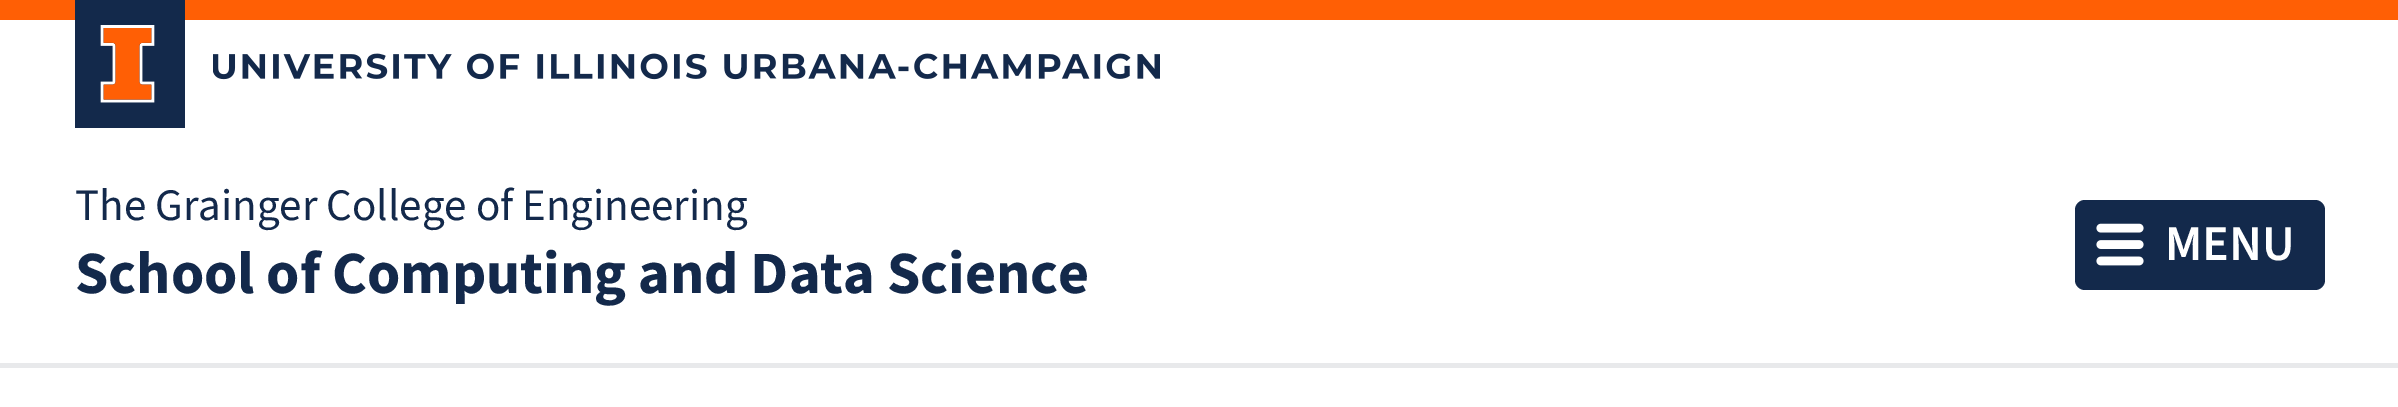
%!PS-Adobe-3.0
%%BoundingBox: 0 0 2398 407
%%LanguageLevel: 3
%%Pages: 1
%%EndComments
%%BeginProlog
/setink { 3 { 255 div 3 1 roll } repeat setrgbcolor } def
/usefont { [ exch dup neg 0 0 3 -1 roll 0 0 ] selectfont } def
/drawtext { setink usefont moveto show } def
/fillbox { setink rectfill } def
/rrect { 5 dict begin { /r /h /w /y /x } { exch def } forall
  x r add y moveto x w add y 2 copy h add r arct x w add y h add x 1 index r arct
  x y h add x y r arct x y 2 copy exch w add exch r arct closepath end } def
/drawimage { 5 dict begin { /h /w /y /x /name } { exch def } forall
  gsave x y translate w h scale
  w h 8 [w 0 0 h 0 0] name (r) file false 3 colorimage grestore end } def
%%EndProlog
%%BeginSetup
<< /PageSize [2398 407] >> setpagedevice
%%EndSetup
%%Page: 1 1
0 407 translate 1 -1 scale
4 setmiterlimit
0 0 2398 407 255 255 255 fillbox
0 363 2398 5 232 233 235 fillbox
0 0 2398 20 255 95 5 fillbox
75 0 110 128 19 41 75 fillbox
(assets/img1.rgb) 100 25 55 78 drawimage
(assets/img2.rgb) 213 53 947 27 drawimage
(The Grainger College of Engineering) 75 220 /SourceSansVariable-Regular 45 19 41 75 drawtext
(School of Computing and Data Science) 75 293 /SourceSansVariable-Bold 60 19 41 75 drawtext
2075 200 250 90 10 rrect fill
(assets/img3.rgb) 2096 223 48 43 drawimage
(MENU) 2165 260 /SourceSansVariable-SemiBold 50 255 255 255 drawtext
showpage
%%EOF
